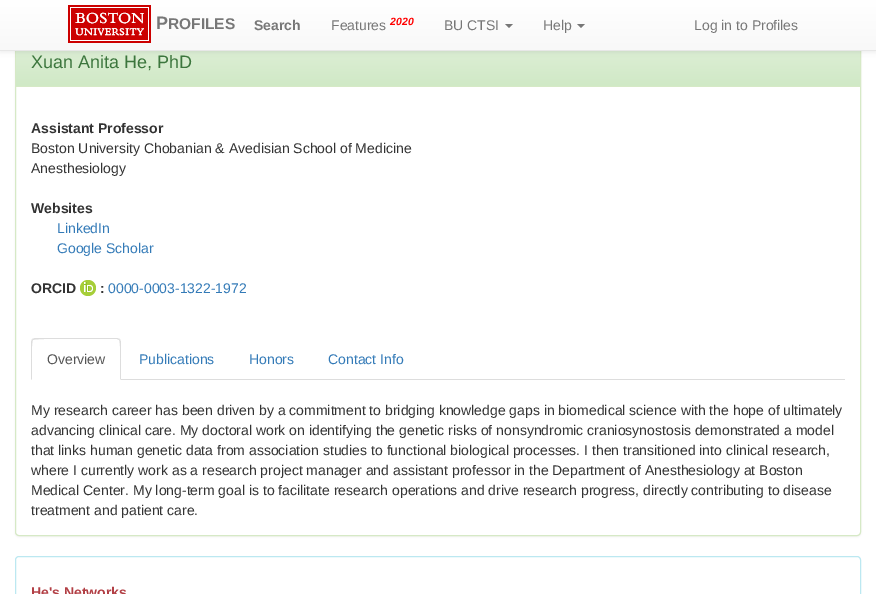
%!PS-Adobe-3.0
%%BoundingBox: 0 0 876 594
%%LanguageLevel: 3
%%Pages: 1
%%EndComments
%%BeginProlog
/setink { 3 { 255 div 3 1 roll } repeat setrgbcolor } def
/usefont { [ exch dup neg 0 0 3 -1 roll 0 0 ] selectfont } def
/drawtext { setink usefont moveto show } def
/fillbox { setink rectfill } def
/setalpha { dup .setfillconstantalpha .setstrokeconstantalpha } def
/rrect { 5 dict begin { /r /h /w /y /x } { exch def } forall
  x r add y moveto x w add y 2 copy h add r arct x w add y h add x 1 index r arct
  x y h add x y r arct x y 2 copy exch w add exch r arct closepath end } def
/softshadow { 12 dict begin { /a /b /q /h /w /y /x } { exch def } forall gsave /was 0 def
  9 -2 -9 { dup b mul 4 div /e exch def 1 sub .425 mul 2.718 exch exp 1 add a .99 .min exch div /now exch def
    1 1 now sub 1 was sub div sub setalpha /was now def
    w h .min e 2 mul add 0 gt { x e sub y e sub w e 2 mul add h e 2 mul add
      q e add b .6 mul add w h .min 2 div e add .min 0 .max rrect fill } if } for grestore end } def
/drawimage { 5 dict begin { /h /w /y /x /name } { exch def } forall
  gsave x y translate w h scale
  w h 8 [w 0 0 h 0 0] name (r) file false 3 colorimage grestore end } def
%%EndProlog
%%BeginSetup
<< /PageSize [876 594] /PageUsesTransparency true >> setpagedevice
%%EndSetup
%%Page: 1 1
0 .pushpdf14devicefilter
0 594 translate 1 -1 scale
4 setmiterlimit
0 0 876 594 255 255 255 fillbox
0 0 0 setink
15 40 846 497 4 1 0.05 softshadow
255 255 255 setink
15.5 39.5 845 496 3.5 rrect gsave fill grestore
214 233 198 setink
stroke
gsave 16 51 moveto 860 51 lineto 860 86 lineto 16 86 lineto closepath clip newpath
<< /ShadingType 2 /ColorSpace /DeviceRGB /Coords [438 40 438 86] /Extend [true true] /Function << /FunctionType 2 /Domain [0 1] /C0 [0.875 0.941 0.847] /C1 [0.816 0.914 0.776] /N 1 >> >> shfill grestore
0 0 0 setink
0 1 876 51 0 2.5 0.07 softshadow
gsave 0 0 moveto 876 0 lineto 876 50 lineto 0 50 lineto closepath clip newpath
<< /ShadingType 2 /ColorSpace /DeviceRGB /Coords [438 0 438 50] /Extend [true true] /Function << /FunctionType 2 /Domain [0 1] /C0 [1 1 1] /C1 [0.973 0.973 0.973] /N 1 >> >> shfill grestore
0 50 876 1 231 231 231 fillbox
(assets/img1.rgb) 68 5 83 38 drawimage
(P) 156 29 /LiberationSans-Bold 18 119 119 119 drawtext
(ROFILES) 168 29 /LiberationSans-Bold 15.5 119 119 119 drawtext
(Search) 254 30 /LiberationSans-Bold 14 119 119 119 drawtext
(Features) 331 30 /LiberationSans-Regular 14 119 119 119 drawtext
(2020) 390 25 /LiberationSans-BoldItalic 10.5 255 0 0 drawtext
(BU CTSI) 444 30 /LiberationSans-Regular 14 119 119 119 drawtext
505 24 moveto 513 24 lineto 509 28 lineto closepath fill
(Help) 543 30 /LiberationSans-Regular 14 119 119 119 drawtext
577 24 moveto 585 24 lineto 581 28 lineto closepath fill
(Log in to Profiles) 694 30 /LiberationSans-Regular 14 119 119 119 drawtext
16 86 844 1 214 233 198 fillbox
(Xuan Anita He, PhD) 31 68 /LiberationSans-Regular 18 60 118 61 drawtext
(Assistant Professor) 31 133 /LiberationSans-Bold 14 51 51 51 drawtext
(Boston University Chobanian & Avedisian School of Medicine) 31 153 /LiberationSans-Regular 14 51 51 51 drawtext
(Anesthesiology) 31 173 /LiberationSans-Regular 14 51 51 51 drawtext
(Websites) 31 213 /LiberationSans-Bold 14 51 51 51 drawtext
(LinkedIn) 57 233 /LiberationSans-Regular 14 51 122 183 drawtext
(Google Scholar) 57 253 /LiberationSans-Regular 14 51 122 183 drawtext
(ORCID) 31 293 /LiberationSans-Bold 14 51 51 51 drawtext
(assets/img2.rgb) 80 280 16 16 drawimage
(:) 100 293 /LiberationSans-Bold 14 51 51 51 drawtext
(0000-0003-1322-1972) 108 293 /LiberationSans-Regular 14 51 122 183 drawtext
121 379 724 1 221 221 221 fillbox
35 338 moveto 32 339 lineto 33 340 lineto 35 338 96 339 103 339 curveto 117 339 lineto 119 340 lineto 120 339 lineto 117 338 lineto closepath fill
121 380 moveto 121 342 lineto 121 341 120 340 120 339 curveto 119 340 lineto 121 342 120 374 120 379 curveto closepath fill
31 380 moveto 32 379 lineto 32 374 31 342 33 340 curveto 32 339 lineto 31 342 lineto closepath fill
(Overview) 47 364 /LiberationSans-Regular 14 85 85 85 drawtext
(Publications) 139 364 /LiberationSans-Regular 14 51 122 183 drawtext
(Honors) 249 364 /LiberationSans-Regular 14 51 122 183 drawtext
(Contact Info) 328 364 /LiberationSans-Regular 14 51 122 183 drawtext
(My research career has been driven by a commitment to bridging knowledge gaps in biomedical science with the hope of ultimately) 31 415 /LiberationSans-Regular 14 51 51 51 drawtext
(advancing clinical care. My doctoral work on identifying the genetic risks of nonsyndromic craniosynostosis demonstrated a model) 31 435 /LiberationSans-Regular 14 51 51 51 drawtext
(that links human genetic data from association studies to functional biological processes. I then transitioned into clinical research,) 31 455 /LiberationSans-Regular 14 51 51 51 drawtext
(where I currently work as a research project manager and assistant professor in the Department of Anesthesiology at Boston) 31 475 /LiberationSans-Regular 14 51 51 51 drawtext
(Medical Center. My long-term goal is to facilitate research operations and drive research progress, directly contributing to disease) 31 495 /LiberationSans-Regular 14 51 51 51 drawtext
(treatment and patient care.) 31 515 /LiberationSans-Regular 14 51 51 51 drawtext
188 232 241 setink
15.5 556.5 845 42 3.5 rrect stroke
(He's Networks) 31 597 /LiberationSans-Bold 14 178 63 69 drawtext
.poppdf14devicefilter showpage
%%EOF
